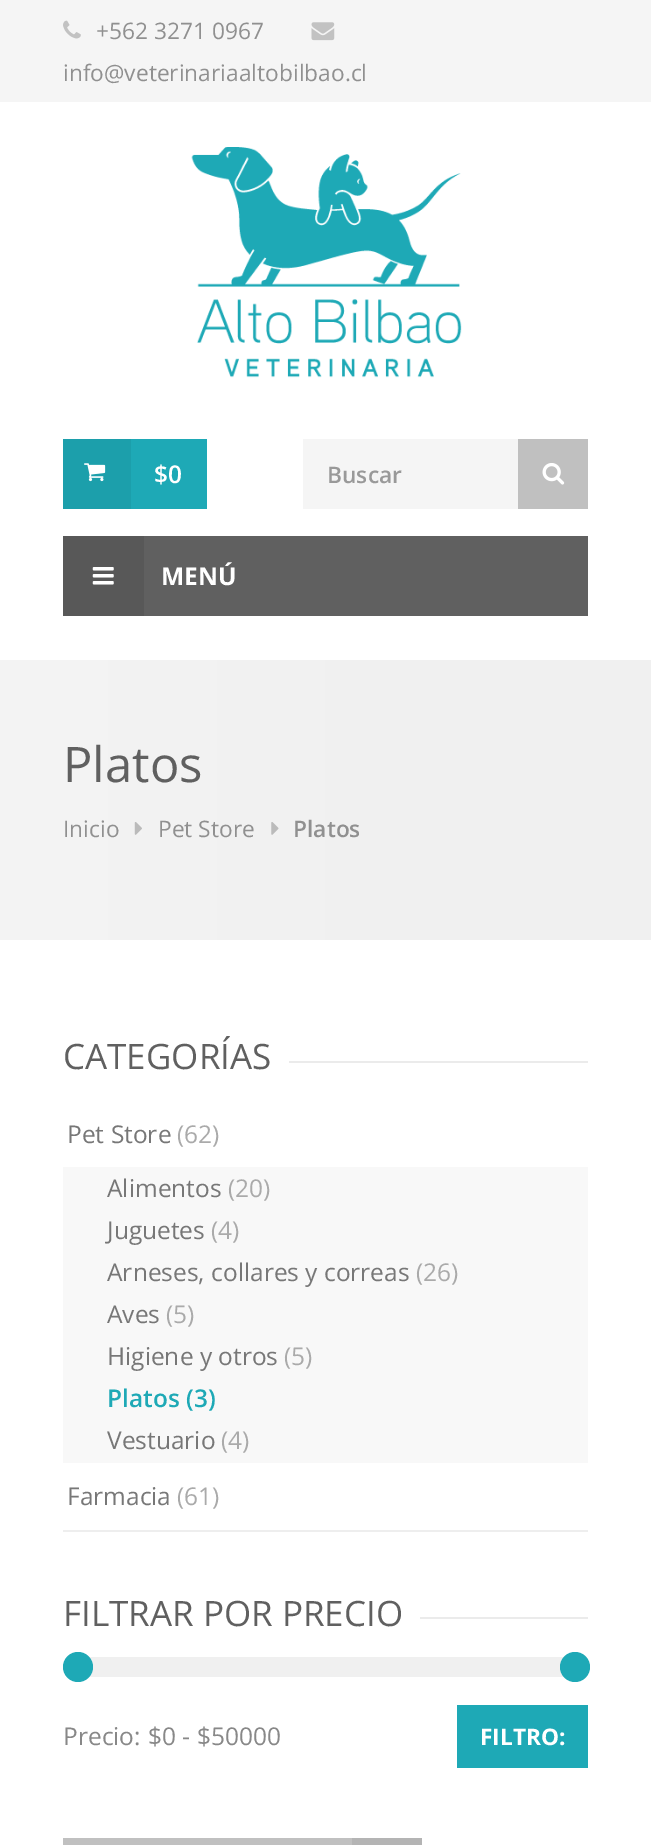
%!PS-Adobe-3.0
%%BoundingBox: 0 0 651 1845
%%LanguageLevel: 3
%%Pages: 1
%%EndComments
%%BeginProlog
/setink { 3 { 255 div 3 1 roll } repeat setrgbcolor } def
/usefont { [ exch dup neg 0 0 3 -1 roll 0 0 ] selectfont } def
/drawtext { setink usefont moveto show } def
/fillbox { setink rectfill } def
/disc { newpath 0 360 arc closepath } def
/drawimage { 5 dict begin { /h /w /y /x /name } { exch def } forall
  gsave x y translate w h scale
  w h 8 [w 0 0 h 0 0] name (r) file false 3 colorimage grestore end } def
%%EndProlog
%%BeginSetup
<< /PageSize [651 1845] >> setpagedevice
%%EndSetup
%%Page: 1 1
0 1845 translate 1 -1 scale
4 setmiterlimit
0 0 651 1845 255 255 255 fillbox
0 0 651 102 245 245 245 fillbox
(assets/img1.rgb) 63 20 18 19 drawimage
(+562 3271 0967) 96 39 /OpenSans-Regular 22.75 144 144 144 drawtext
(assets/img2.rgb) 311 22 24 19 drawimage
(info@veterinariaaltobilbao.cl) 63 81 /OpenSans-Regular 22.75 144 144 144 drawtext
(assets/img3.rgb) 191 147 271 231 drawimage
131 439 76 70 30 169 182 fillbox
63 439 68 70 28 159 171 fillbox
(assets/img4.rgb) 84 463 22 19 drawimage
($0) 154 483 /OpenSans-SemiBold 24.5 255 255 255 drawtext
303 439 215 70 245 245 245 fillbox
(Buscar) 327 483 /OpenSans-SemiBold 22.75 153 153 153 drawtext
518 439 70 70 192 192 192 fillbox
(assets/img5.rgb) 542 463 23 22 drawimage
144 536 444 80 96 96 96 fillbox
63 536 81 80 88 88 88 fillbox
(assets/img6.rgb) 92 567 22 18 drawimage
(MENÚ) 161 585 /OpenSans-Bold 24.5 255 255 255 drawtext
gsave 0 660 moveto 651 660 lineto 651 940 lineto 0 940 lineto closepath clip newpath
<< /ShadingType 2 /ColorSpace /DeviceRGB /Coords [0 800 651 800] /Extend [true true] /Function << /FunctionType 3 /Domain [0 1] /Functions [<< /FunctionType 2 /Domain [0 1] /C0 [0.957 0.957 0.957] /C1 [0.941 0.941 0.941] /N 1 >> << /FunctionType 2 /Domain [0 1] /C0 [0.941 0.941 0.941] /C1 [0.941 0.941 0.941] /N 1 >>] /Bounds [0.76] /Encode [0 1 0 1] >> >> shfill grestore
(Platos) 63 782 /OpenSans-Regular 49 96 96 96 drawtext
(Inicio) 63 837 /OpenSans-Regular 22.75 144 144 144 drawtext
(assets/img7.rgb) 134 822 8 13 drawimage
(Pet Store) 158 837 /OpenSans-Regular 22.75 144 144 144 drawtext
(assets/img8.rgb) 271 822 8 13 drawimage
(Platos) 293 837 /OpenSans-SemiBold 22.75 144 144 144 drawtext
(CATEGORÍAS) 63 1069 /OpenSans-Regular 35 96 96 96 drawtext
289 1061 299 2 235 235 235 fillbox
(Pet Store) 67 1143 /OpenSans-Regular 24.5 119 119 119 drawtext
(\(62\)) 177 1143 /OpenSans-Regular 24.5 170 170 170 drawtext
63 1167 525 296 248 248 248 fillbox
(Alimentos) 107 1197 /OpenSans-Regular 24.5 119 119 119 drawtext
(\(20\)) 228 1197 /OpenSans-Regular 24.5 170 170 170 drawtext
(Juguetes) 107 1239 /OpenSans-Regular 24.5 119 119 119 drawtext
(\(4\)) 211 1239 /OpenSans-Regular 24.5 170 170 170 drawtext
(Arneses, collares y correas) 107 1281 /OpenSans-Regular 24.5 119 119 119 drawtext
(\(26\)) 416 1281 /OpenSans-Regular 24.5 170 170 170 drawtext
(Aves) 107 1323 /OpenSans-Regular 24.5 119 119 119 drawtext
(\(5\)) 166 1323 /OpenSans-Regular 24.5 170 170 170 drawtext
(Higiene y otros) 107 1365 /OpenSans-Regular 24.5 119 119 119 drawtext
(\(5\)) 284 1365 /OpenSans-Regular 24.5 170 170 170 drawtext
(Platos \(3\)) 107 1407 /OpenSans-SemiBold 24.5 30 169 182 drawtext
(Vestuario) 107 1449 /OpenSans-Regular 24.5 119 119 119 drawtext
(\(4\)) 221 1449 /OpenSans-Regular 24.5 170 170 170 drawtext
63 1530 525 2 238 238 238 fillbox
(Farmacia) 67 1505 /OpenSans-Regular 24.5 119 119 119 drawtext
(\(61\)) 177 1505 /OpenSans-Regular 24.5 170 170 170 drawtext
(FILTRAR POR PRECIO) 63 1626 /OpenSans-Regular 35 96 96 96 drawtext
420 1617 168 2 235 235 235 fillbox
89 1657 475 20 240 240 240 fillbox
30 169 182 setink
78 1667 15 disc fill
575 1667 15 disc fill
(Precio:) 63 1745 /OpenSans-Regular 24.5 136 136 136 drawtext
($0 - $50000) 148 1745 /OpenSans-Regular 24.5 136 136 136 drawtext
457 1705 131 63 30 169 182 fillbox
(FILTRO:) 480 1745 /OpenSans-Bold 22.75 255 255 255 drawtext
63 1838 289 7 192 192 192 fillbox
352 1838 70 7 180 180 180 fillbox
showpage
%%EOF
